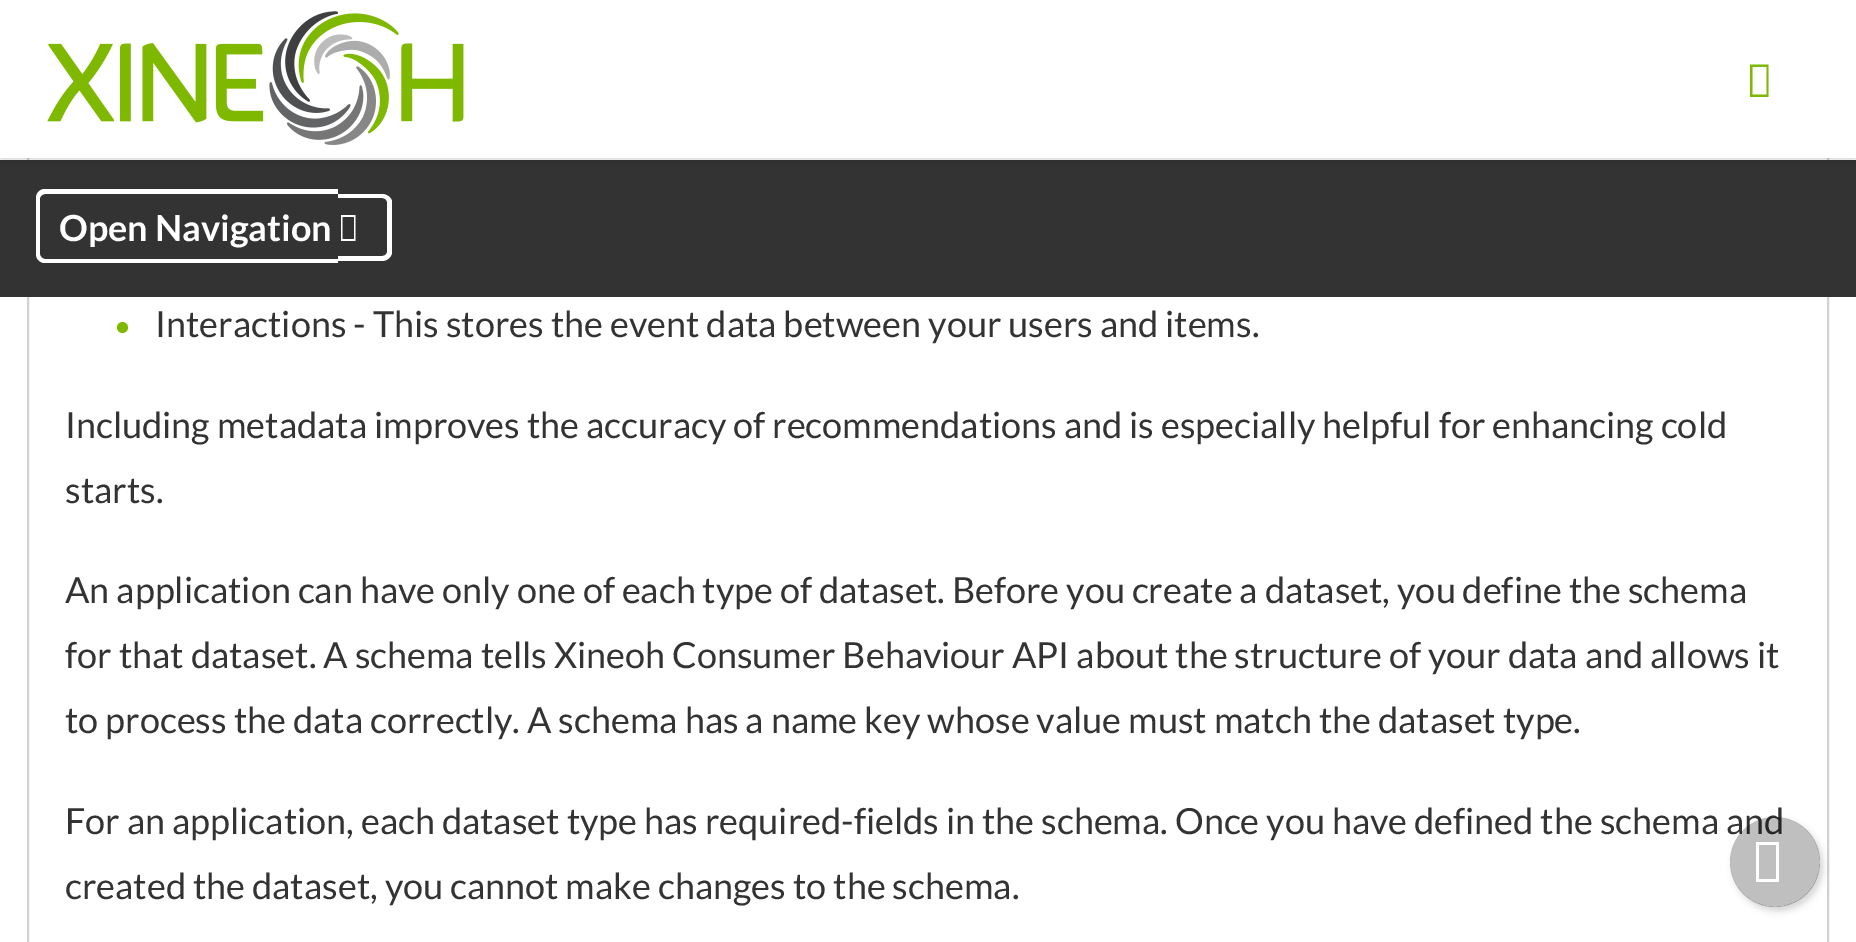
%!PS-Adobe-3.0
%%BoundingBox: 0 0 1856 942
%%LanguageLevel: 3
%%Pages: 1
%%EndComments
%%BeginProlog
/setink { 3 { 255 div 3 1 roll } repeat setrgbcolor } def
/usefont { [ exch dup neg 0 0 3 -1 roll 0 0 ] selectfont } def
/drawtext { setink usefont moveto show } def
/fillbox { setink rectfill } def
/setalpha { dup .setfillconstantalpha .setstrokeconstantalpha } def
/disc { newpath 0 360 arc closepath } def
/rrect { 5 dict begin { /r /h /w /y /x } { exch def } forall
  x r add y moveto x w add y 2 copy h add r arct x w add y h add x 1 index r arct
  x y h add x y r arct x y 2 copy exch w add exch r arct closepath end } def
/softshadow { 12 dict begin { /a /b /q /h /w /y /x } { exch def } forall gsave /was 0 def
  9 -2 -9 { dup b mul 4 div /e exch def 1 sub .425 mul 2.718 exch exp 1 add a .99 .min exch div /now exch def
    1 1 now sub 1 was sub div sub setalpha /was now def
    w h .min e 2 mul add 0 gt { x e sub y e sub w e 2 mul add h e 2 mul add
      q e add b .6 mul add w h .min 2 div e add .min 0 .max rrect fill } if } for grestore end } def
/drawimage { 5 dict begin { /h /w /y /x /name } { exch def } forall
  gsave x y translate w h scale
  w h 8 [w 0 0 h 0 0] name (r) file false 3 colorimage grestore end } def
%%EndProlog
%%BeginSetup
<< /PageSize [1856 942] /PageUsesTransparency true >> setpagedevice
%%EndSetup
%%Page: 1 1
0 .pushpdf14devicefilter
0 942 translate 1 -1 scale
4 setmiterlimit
0 0 1856 942 255 255 255 fillbox
210 210 210 setink
2 setlinewidth
28 -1 1800 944 rectstroke
0 160 1856 137 51 51 51 fillbox
0 0 0 setink
0 0 1856 158 0 7 0.22 softshadow
0 0 1856 158 255 255 255 fillbox
(assets/img1.rgb) 47 11 417 134 drawimage
126 184 0 setink
1750 97 moveto 1750 64.5 lineto 1768.5 64.5 lineto 1768.5 97 lineto closepath 1752.5 94.5 moveto 1766.5 94.5 lineto 1766.5 67 lineto 1752.5 67 lineto closepath fill
255 255 255 setink
45 189 moveto 338 189 lineto 338 263 lineto 45 263 lineto 40 263 36 259 36 254 curveto 36 198 lineto 36 193 40 189 45 189 curveto closepath 45 194 moveto 338 194 lineto 338 259 lineto 45 259 lineto 43 259 40 257 40 254 curveto 40 198 lineto 40 196 43 194 45 194 curveto closepath eofill
338 194 moveto 382 194 lineto 387 194 392 198 392 202 curveto 392 252 lineto 392 257 387 261 382 261 curveto 338 261 lineto closepath 338 198 moveto 382 198 lineto 385 198 387 200 387 202 curveto 387 252 lineto 387 254 385 256 382 256 curveto 338 256 lineto closepath eofill
(Open Navigation) 59 241 /Lato-Bold 36 255 255 255 drawtext
341 241 moveto 341 215 lineto 355.5 215 lineto 355.5 241 lineto closepath 342.5 239 moveto 354 239 lineto 354 217 lineto 342.5 217 lineto closepath fill
126 184 0 setink
122.5 327.5 5.5 disc fill
(Interactions - This stores the event data between your users and items.) 155 337 /Lato-Regular 36 51 51 51 drawtext
(Including metadata improves the accuracy of recommendations and is especially helpful for enhancing cold) 65 438 /Lato-Regular 36 51 51 51 drawtext
(starts.) 65 503 /Lato-Regular 36 51 51 51 drawtext
(An application can have only one of each type of dataset. Before you create a dataset, you define the schema) 65 603 /Lato-Regular 36 51 51 51 drawtext
(for that dataset. A schema tells Xineoh Consumer Behaviour API about the structure of your data and allows it) 65 668 /Lato-Regular 36 51 51 51 drawtext
(to process the data correctly. A schema has a name key whose value must match the dataset type.) 65 733 /Lato-Regular 36 51 51 51 drawtext
(For an application, each dataset type has required-fields in the schema. Once you have defined the schema and) 65 834 /Lato-Regular 36 51 51 51 drawtext
(created the dataset, you cannot make changes to the schema.) 65 899 /Lato-Regular 36 51 51 51 drawtext
gsave
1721 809 moveto 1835 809 lineto 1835 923 lineto 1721 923 lineto closepath 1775 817 moveto 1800 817 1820 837 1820 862 curveto 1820 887 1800 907 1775 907 curveto 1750 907 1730 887 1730 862 curveto 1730 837 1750 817 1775 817 curveto closepath eoclip newpath
0 0 0 setink
1733 821 90 90 45 3.5 0.16 softshadow
grestore
0.25 setalpha
0 0 0 setink
1775 862 45 disc fill
1 setalpha
255 255 255 setink
1756 882 moveto 1756 842 lineto 1779 842 lineto 1779 882 lineto closepath 1759 879 moveto 1776 879 lineto 1776 845 lineto 1759 845 lineto closepath fill
.poppdf14devicefilter showpage
%%EOF
